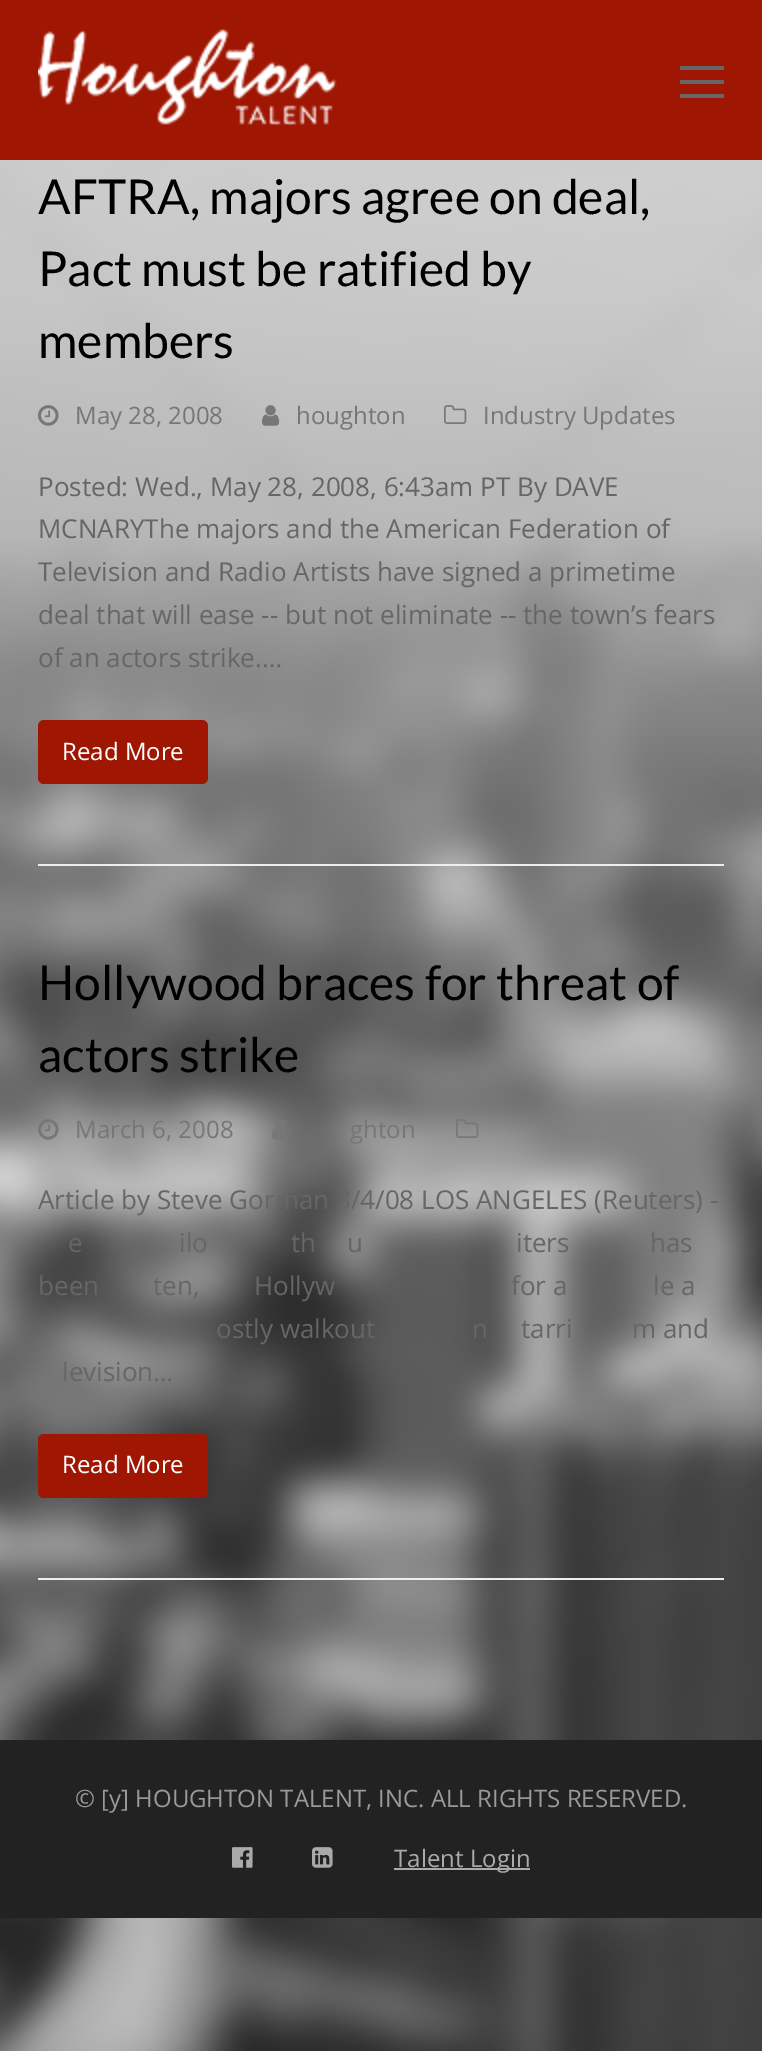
%!PS-Adobe-3.0
%%BoundingBox: 0 0 762 2051
%%LanguageLevel: 3
%%Pages: 1
%%EndComments
%%BeginProlog
/setink { 3 { 255 div 3 1 roll } repeat setrgbcolor } def
/usefont { [ exch dup neg 0 0 3 -1 roll 0 0 ] selectfont } def
/drawtext { setink usefont moveto show } def
/fillbox { setink rectfill } def
/rrect { 5 dict begin { /r /h /w /y /x } { exch def } forall
  x r add y moveto x w add y 2 copy h add r arct x w add y h add x 1 index r arct
  x y h add x y r arct x y 2 copy exch w add exch r arct closepath end } def
/drawimage { 5 dict begin { /h /w /y /x /name } { exch def } forall
  gsave x y translate w h scale
  w h 8 [w 0 0 h 0 0] name (r) file false 3 colorimage grestore end } def
%%EndProlog
%%BeginSetup
<< /PageSize [762 2051] >> setpagedevice
%%EndSetup
%%Page: 1 1
0 2051 translate 1 -1 scale
4 setmiterlimit
0 0 762 2051 255 255 255 fillbox
(assets/img1.rgb) 0 160 762 1891 drawimage
0 0 762 160 159 22 3 fillbox
(assets/img2.rgb) 38 29 299 97 drawimage
680 80 44 4 102 102 102 fillbox
680 66 44 4 102 102 102 fillbox
680 94 44 4 102 102 102 fillbox
38 864 686 2 238 238 238 fillbox
(AFTRA, majors agree on deal,) 38 214 /Lato-Regular 48 0 0 0 drawtext
(Pact must be ratified by) 38 286 /Lato-Regular 48 0 0 0 drawtext
(members) 38 358 /Lato-Regular 48 0 0 0 drawtext
(assets/img3.rgb) 38 405 21 21 drawimage
(May 28, 2008) 75 424 /OpenSans-Regular 24 119 119 119 drawtext
(assets/img4.rgb) 262 405 18 21 drawimage
(houghton) 296 424 /OpenSans-Regular 24 119 119 119 drawtext
(assets/img5.rgb) 444 405 23 19 drawimage
(Industry Updates) 483 424 /OpenSans-Regular 24 119 119 119 drawtext
(Posted: Wed., May 28, 2008, 6:43am PT By DAVE) 38 496 /OpenSans-Regular 26 102 102 102 drawtext
(MCNARYThe majors and the American Federation of) 38 538 /OpenSans-Regular 26 102 102 102 drawtext
(Television and Radio Artists have signed a primetime) 38 581 /OpenSans-Regular 26 102 102 102 drawtext
(deal that will ease -- but not eliminate -- the town’s fears) 38 624 /OpenSans-Regular 26 102 102 102 drawtext
(of an actors strike.…) 38 667 /OpenSans-Regular 26 102 102 102 drawtext
159 22 3 setink
38 720 170 64 6 rrect fill
(Read More) 62 760 /OpenSans-Regular 24 255 255 255 drawtext
38 1578 686 2 238 238 238 fillbox
(Hollywood braces for threat of) 38 1000 /Lato-Regular 48 0 0 0 drawtext
(actors strike) 38 1072 /Lato-Regular 48 0 0 0 drawtext
(assets/img6.rgb) 38 1119 21 21 drawimage
(March 6, 2008) 75 1138 /OpenSans-Regular 24 119 119 119 drawtext
(assets/img7.rgb) 272 1120 13 20 drawimage
(ghton) 350 1138 /OpenSans-Regular 24 119 119 119 drawtext
(assets/img8.rgb) 456 1119 23 19 drawimage
(Article by Steve Gorman 3/4/08 LOS ANGELES \(Reuters\) -) 38 1209 /OpenSans-Regular 26 102 102 102 drawtext
(e) 68 1252 /OpenSans-Regular 26 102 102 102 drawtext
(ilo) 179 1252 /OpenSans-Regular 26 102 102 102 drawtext
(th) 291 1252 /OpenSans-Regular 26 102 102 102 drawtext
(u) 347 1252 /OpenSans-Regular 26 102 102 102 drawtext
(iters) 516 1252 /OpenSans-Regular 26 102 102 102 drawtext
(has) 650 1252 /OpenSans-Regular 26 102 102 102 drawtext
(been) 38 1295 /OpenSans-Regular 26 102 102 102 drawtext
(ten,) 153 1295 /OpenSans-Regular 26 102 102 102 drawtext
(Hollyw) 254 1295 /OpenSans-Regular 26 102 102 102 drawtext
(for a) 511 1295 /OpenSans-Regular 26 102 102 102 drawtext
(le a) 653 1295 /OpenSans-Regular 26 102 102 102 drawtext
(ostly walkout) 216 1338 /OpenSans-Regular 26 102 102 102 drawtext
(n) 472 1338 /OpenSans-Regular 26 102 102 102 drawtext
(tarri) 521 1338 /OpenSans-Regular 26 102 102 102 drawtext
(m and) 632 1338 /OpenSans-Regular 26 102 102 102 drawtext
(levision…) 62 1381 /OpenSans-Regular 26 102 102 102 drawtext
159 22 3 setink
38 1434 170 64 6 rrect fill
(Read More) 62 1473 /OpenSans-Regular 24 255 255 255 drawtext
0 1740 762 178 34 34 34 fillbox
(© [y] HOUGHTON TALENT, INC. ALL RIGHTS RESERVED.) 75 1807 /OpenSans-Regular 24 153 153 153 drawtext
(assets/img9.rgb) 232 1847 21 21 drawimage
(assets/img10.rgb) 312 1847 21 21 drawimage
394 1868 136 2 170 170 170 fillbox
(Talent Login) 394 1867 /OpenSans-Regular 24 170 170 170 drawtext
showpage
%%EOF
